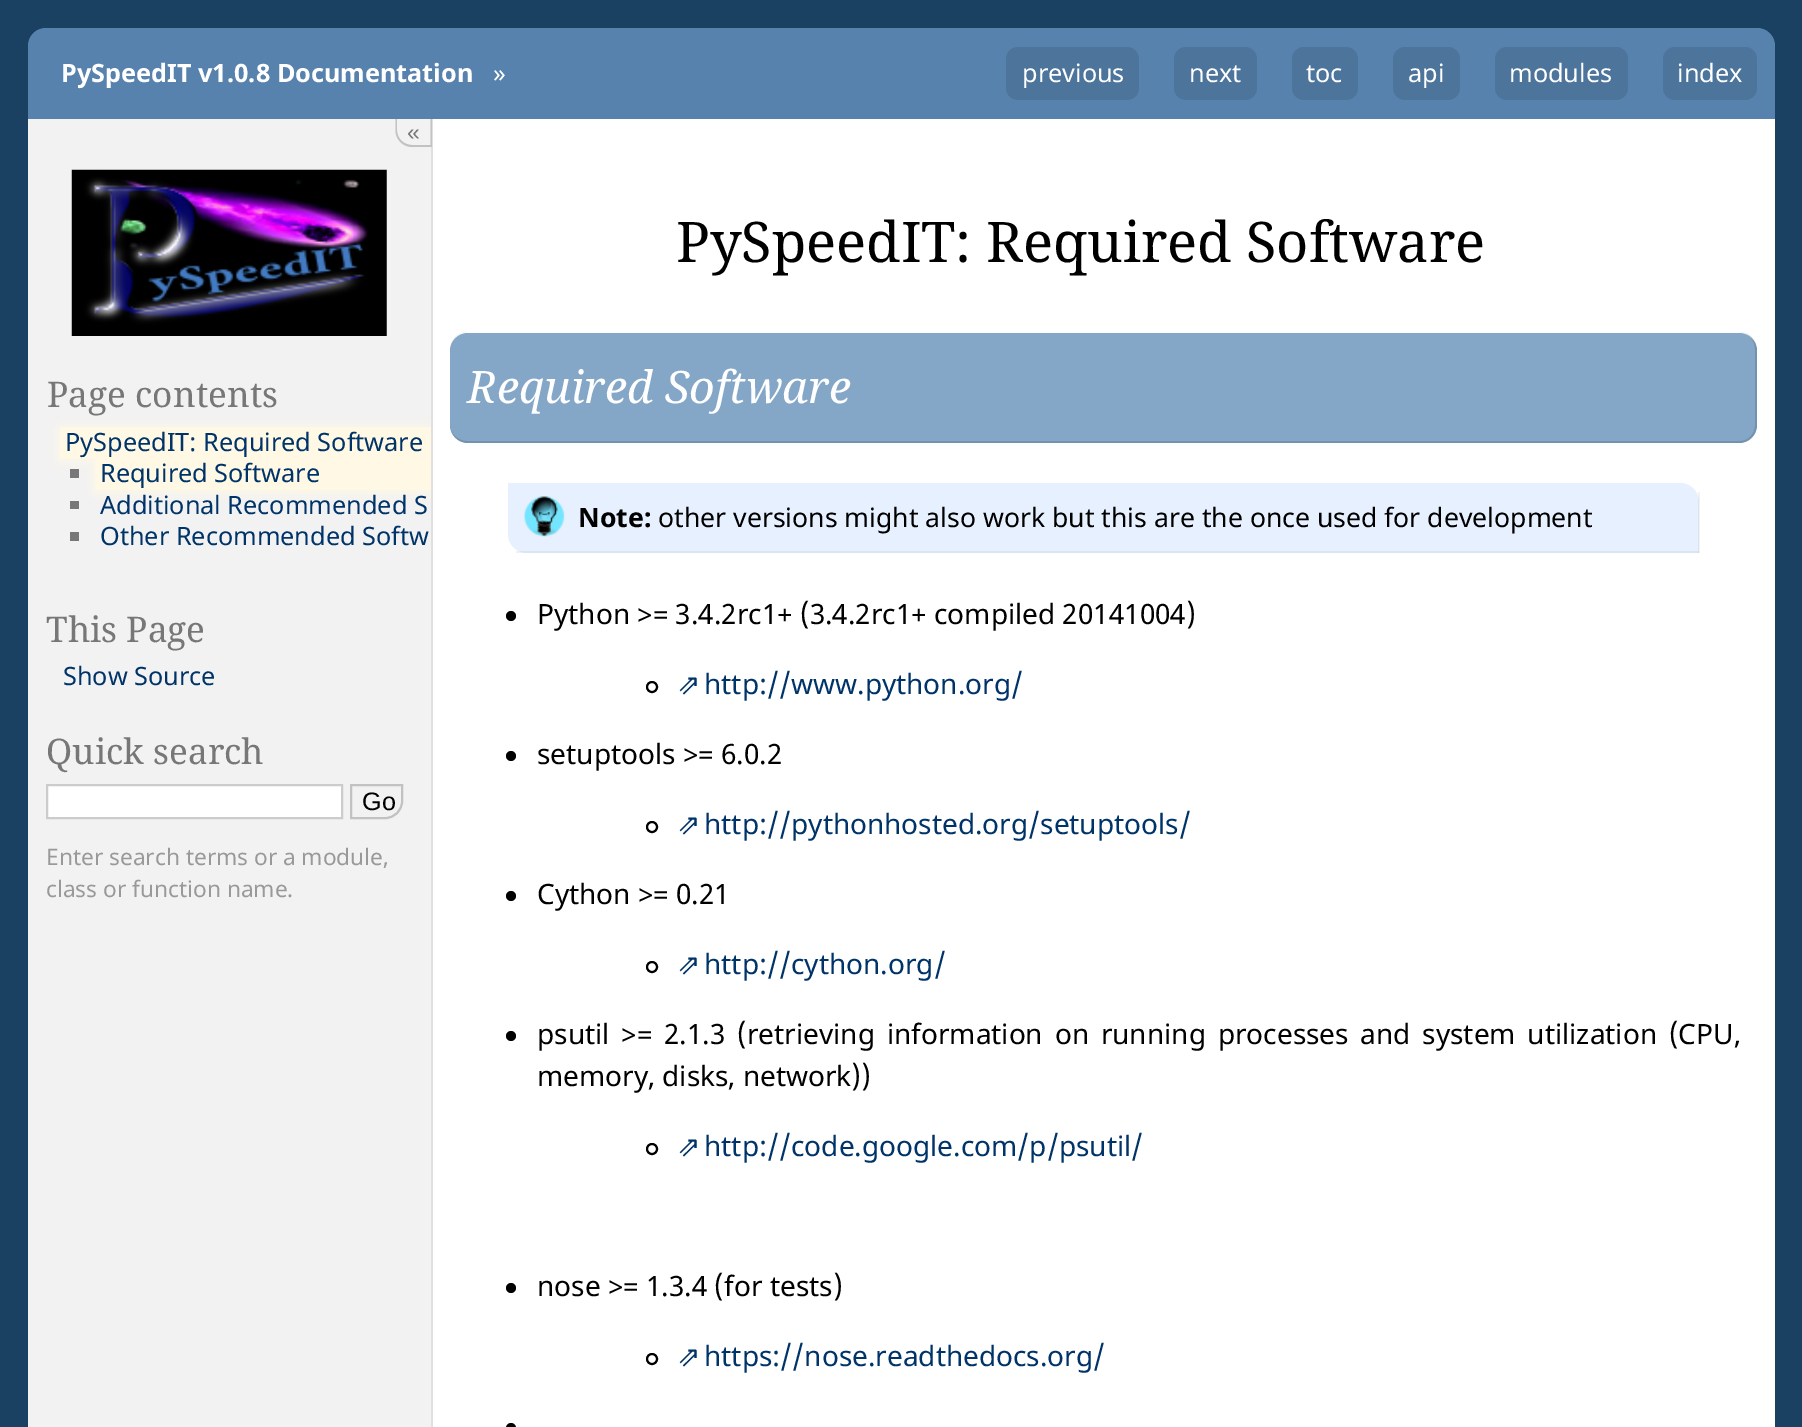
%!PS-Adobe-3.0
%%BoundingBox: 0 0 1802 1427
%%LanguageLevel: 3
%%Pages: 1
%%EndComments
%%BeginProlog
/setink { 3 { 255 div 3 1 roll } repeat setrgbcolor } def
/usefont { [ exch dup neg 0 0 3 -1 roll 0 0 ] selectfont } def
/drawtext { setink usefont moveto show } def
/fillbox { setink rectfill } def
/setalpha { dup .setfillconstantalpha .setstrokeconstantalpha } def
/disc { newpath 0 360 arc closepath } def
/rrect { 5 dict begin { /r /h /w /y /x } { exch def } forall
  x r add y moveto x w add y 2 copy h add r arct x w add y h add x 1 index r arct
  x y h add x y r arct x y 2 copy exch w add exch r arct closepath end } def
/softshadow { 12 dict begin { /a /b /q /h /w /y /x } { exch def } forall gsave /was 0 def
  9 -2 -9 { dup b mul 4 div /e exch def 1 sub .425 mul 2.718 exch exp 1 add a .99 .min exch div /now exch def
    1 1 now sub 1 was sub div sub setalpha /was now def
    w h .min e 2 mul add 0 gt { x e sub y e sub w e 2 mul add h e 2 mul add
      q e add b .6 mul add w h .min 2 div e add .min 0 .max rrect fill } if } for grestore end } def
/drawimage { 5 dict begin { /h /w /y /x /name } { exch def } forall
  gsave x y translate w h scale
  w h 8 [w 0 0 h 0 0] name (r) file false 3 colorimage grestore end } def
%%EndProlog
%%BeginSetup
<< /PageSize [1802 1427] /PageUsesTransparency true >> setpagedevice
%%EndSetup
%%Page: 1 1
0 .pushpdf14devicefilter
0 1427 translate 1 -1 scale
4 setmiterlimit
0 0 1802 1427 26 65 98 fillbox
86 130 173 setink
46 28 moveto 1757 28 lineto 1767 28 1775 36 1775 46 curveto 1775 119 lineto 28 119 lineto 28 46 lineto 28 36 36 28 46 28 curveto closepath fill
(PySpeedIT v1.0.8 Documentation) 61 82 /NotoSans-Bold 25.25 255 255 255 drawtext
(») 493 82 /NotoSans-Regular 25.25 255 255 255 drawtext
77 117 156 setink
1006 47 133 53 12 rrect fill
(previous) 1022 82 /NotoSans-Regular 25.25 255 255 255 drawtext
77 117 156 setink
1174 47 83 53 12 rrect fill
(next) 1189 82 /NotoSans-Regular 25.25 255 255 255 drawtext
77 117 156 setink
1292 47 66 53 12 rrect fill
(toc) 1306 82 /NotoSans-Regular 25.25 255 255 255 drawtext
77 117 156 setink
1393 47 67 53 12 rrect fill
(api) 1408 82 /NotoSans-Regular 25.25 255 255 255 drawtext
77 117 156 setink
1495 47 133 53 12 rrect fill
(modules) 1509 82 /NotoSans-Regular 25.25 255 255 255 drawtext
77 117 156 setink
1663 47 94 53 12 rrect fill
(index) 1677 82 /NotoSans-Regular 25.25 255 255 255 drawtext
28 119 403 1308 242 242 242 fillbox
431 119 2 1308 224 224 224 fillbox
242 242 242 setink
396 119 moveto 432 119 lineto 432 147 lineto 412 147 lineto 403 147 396 140 396 131 curveto closepath fill
194 194 194 setink
395.5 119 moveto 432 119 lineto 432 147 lineto 412 147 lineto 403 147 395.5 139.5 395.5 130.5 curveto closepath 397 119 moveto 430.5 119 lineto 430.5 145 lineto 412 145 lineto 404 145 397 138.5 397 130.5 curveto closepath eofill
(«) 407 140 /LiberationSans-Regular 23 119 119 119 drawtext
(assets/img1.rgb) 71 169 316 167 drawimage
433 119 1342 1308 255 255 255 fillbox
132 166 199 setink
450 333 1307 110 18 rrect fill
0.12 setalpha
0 0 0 setink
467 332 moveto 1740 332 lineto 1749 332 1757 340 1757 350 curveto 1757 425 lineto 1757 435 1749 443 1740 443 curveto 467 443 lineto 458 443 450 435 450 425 curveto 450 350 lineto 450 340 458 332 467 332 curveto closepath 467 332 moveto 1740 332 lineto 1748 332 1755 340 1755 350 curveto 1755 425 lineto 1755 434 1748 441 1740 441 curveto 467 441 lineto 458 441 450 434 450 425 curveto 450 350 lineto 450 340 458 332 467 332 curveto closepath eofill
gsave
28 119 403 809 rectclip
1 setalpha
255 248 228 setink
60 429 553 31 0 6.5 1 softshadow
grestore
1 setalpha
(Page contents) 47 407 /NotoSerif-Regular 35.25 119 119 119 drawtext
60 427 371 32 255 248 228 fillbox
231 240 254 setink
508 483 moveto 1680 483 lineto 1690.5 483 1699 491.5 1699 502 curveto 1699 553 lineto 527 553 lineto 516.5 553 508 544.5 508 534 curveto closepath fill
(assets/img2.rgb) 524 496 41 41 drawimage
gsave
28 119 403 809 rectclip
255 248 228 setink
95 460 518 32 0 6.5 1 softshadow
grestore
(PySpeedIT: Required Software) 65 451 /NotoSans-Regular 25.25 0 52 105 drawtext
70 469 9 9 119 119 119 fillbox
95 459 336 31 255 248 228 fillbox
(Required Software) 100 482 /NotoSans-Regular 25.25 0 52 105 drawtext
70 501 9 8 119 119 119 fillbox
(Additional Recommended S) 100 514 /NotoSans-Regular 25.25 0 52 105 drawtext
70 532 9 9 119 119 119 fillbox
(Other Recommended Softw) 100 545 /NotoSans-Regular 25.25 0 52 105 drawtext
(This Page) 46 642 /NotoSerif-Regular 35.25 119 119 119 drawtext
(Show Source) 63 685 /NotoSans-Regular 25.25 0 52 105 drawtext
(Quick search) 46 764 /NotoSerif-Regular 35.25 119 119 119 drawtext
255 255 255 setink
47 785 moveto 342 785 lineto 342 818 lineto 47 818 lineto closepath gsave fill grestore
204 204 204 setink
2 setlinewidth
stroke
194 194 194 setink
351 785 moveto 402 785 lineto 402 801.5 lineto 402 810.5 394.5 818 385.5 818 curveto 351 818 lineto closepath stroke
(Go) 362 810 /LiberationSans-Regular 25.25 0 0 0 drawtext
(Enter search terms or a module,) 46 865 /NotoSans-Regular 22.7 153 153 153 drawtext
(class or function name.) 46 897 /NotoSans-Regular 22.7 153 153 153 drawtext
(PySpeedIT: Required Software) 676 262 /NotoSerif-Regular 56 0 0 0 drawtext
(Required Software) 467 403 /NotoSerif-Italic 44.75 255 255 255 drawtext
0.05 setalpha
1698 492 2 61 0 0 0 fillbox
516 551 1183 2 0 0 0 fillbox
1 setalpha
(Note:) 578 527 /NotoSans-Bold 26.6 0 0 0 drawtext
(other versions might also work but this are the once used for development) 658 527 /NotoSans-Regular 26.6 0 0 0 drawtext
511 616 5 disc fill
(Python >= 3.4.2rc1+ \(3.4.2rc1+ compiled 20141004\)) 537 624 /NotoSans-Regular 28 0 0 0 drawtext
652 687 5 disc stroke
(⇗) 677 694 /DejaVuSans-Regular 28 0 52 105 drawtext
(http://www.python.org/) 704 694 /NotoSans-Regular 28 0 52 105 drawtext
0 0 0 setink
511 756 5 disc fill
(setuptools >= 6.0.2) 537 764 /NotoSans-Regular 28 0 0 0 drawtext
652 827 5 disc stroke
(⇗) 677 834 /DejaVuSans-Regular 28 0 52 105 drawtext
(http://pythonhosted.org/setuptools/) 704 834 /NotoSans-Regular 28 0 52 105 drawtext
0 0 0 setink
511 896 5 disc fill
(Cython >= 0.21) 537 904 /NotoSans-Regular 28 0 0 0 drawtext
652 967 5 disc stroke
(⇗) 677 974 /DejaVuSans-Regular 28 0 52 105 drawtext
(http://cython.org/) 704 974 /NotoSans-Regular 28 0 52 105 drawtext
0 0 0 setink
511 1036 5 disc fill
537 1044 moveto 4.5 0 32 (psutil >= 2.1.3) widthshow
737 1044 moveto 4.5 0 32 (\(retrieving information on running processes and system utilization \(CPU,) widthshow
(memory, disks, network\)\)) 537 1086 /NotoSans-Regular 28 0 0 0 drawtext
652 1149 5 disc stroke
(⇗) 677 1156 /DejaVuSans-Regular 28 0 52 105 drawtext
(http://code.google.com/p/psutil/) 704 1156 /NotoSans-Regular 28 0 52 105 drawtext
0 0 0 setink
511 1288 5 disc fill
(nose >= 1.3.4 \(for tests\)) 537 1296 /NotoSans-Regular 28 0 0 0 drawtext
652 1359 5 disc stroke
(⇗) 677 1366 /DejaVuSans-Regular 28 0 52 105 drawtext
(https://nose.readthedocs.org/) 704 1366 /NotoSans-Regular 28 0 52 105 drawtext
0 0 0 setink
506 1423 10 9 5 rrect fill
.poppdf14devicefilter showpage
%%EOF
